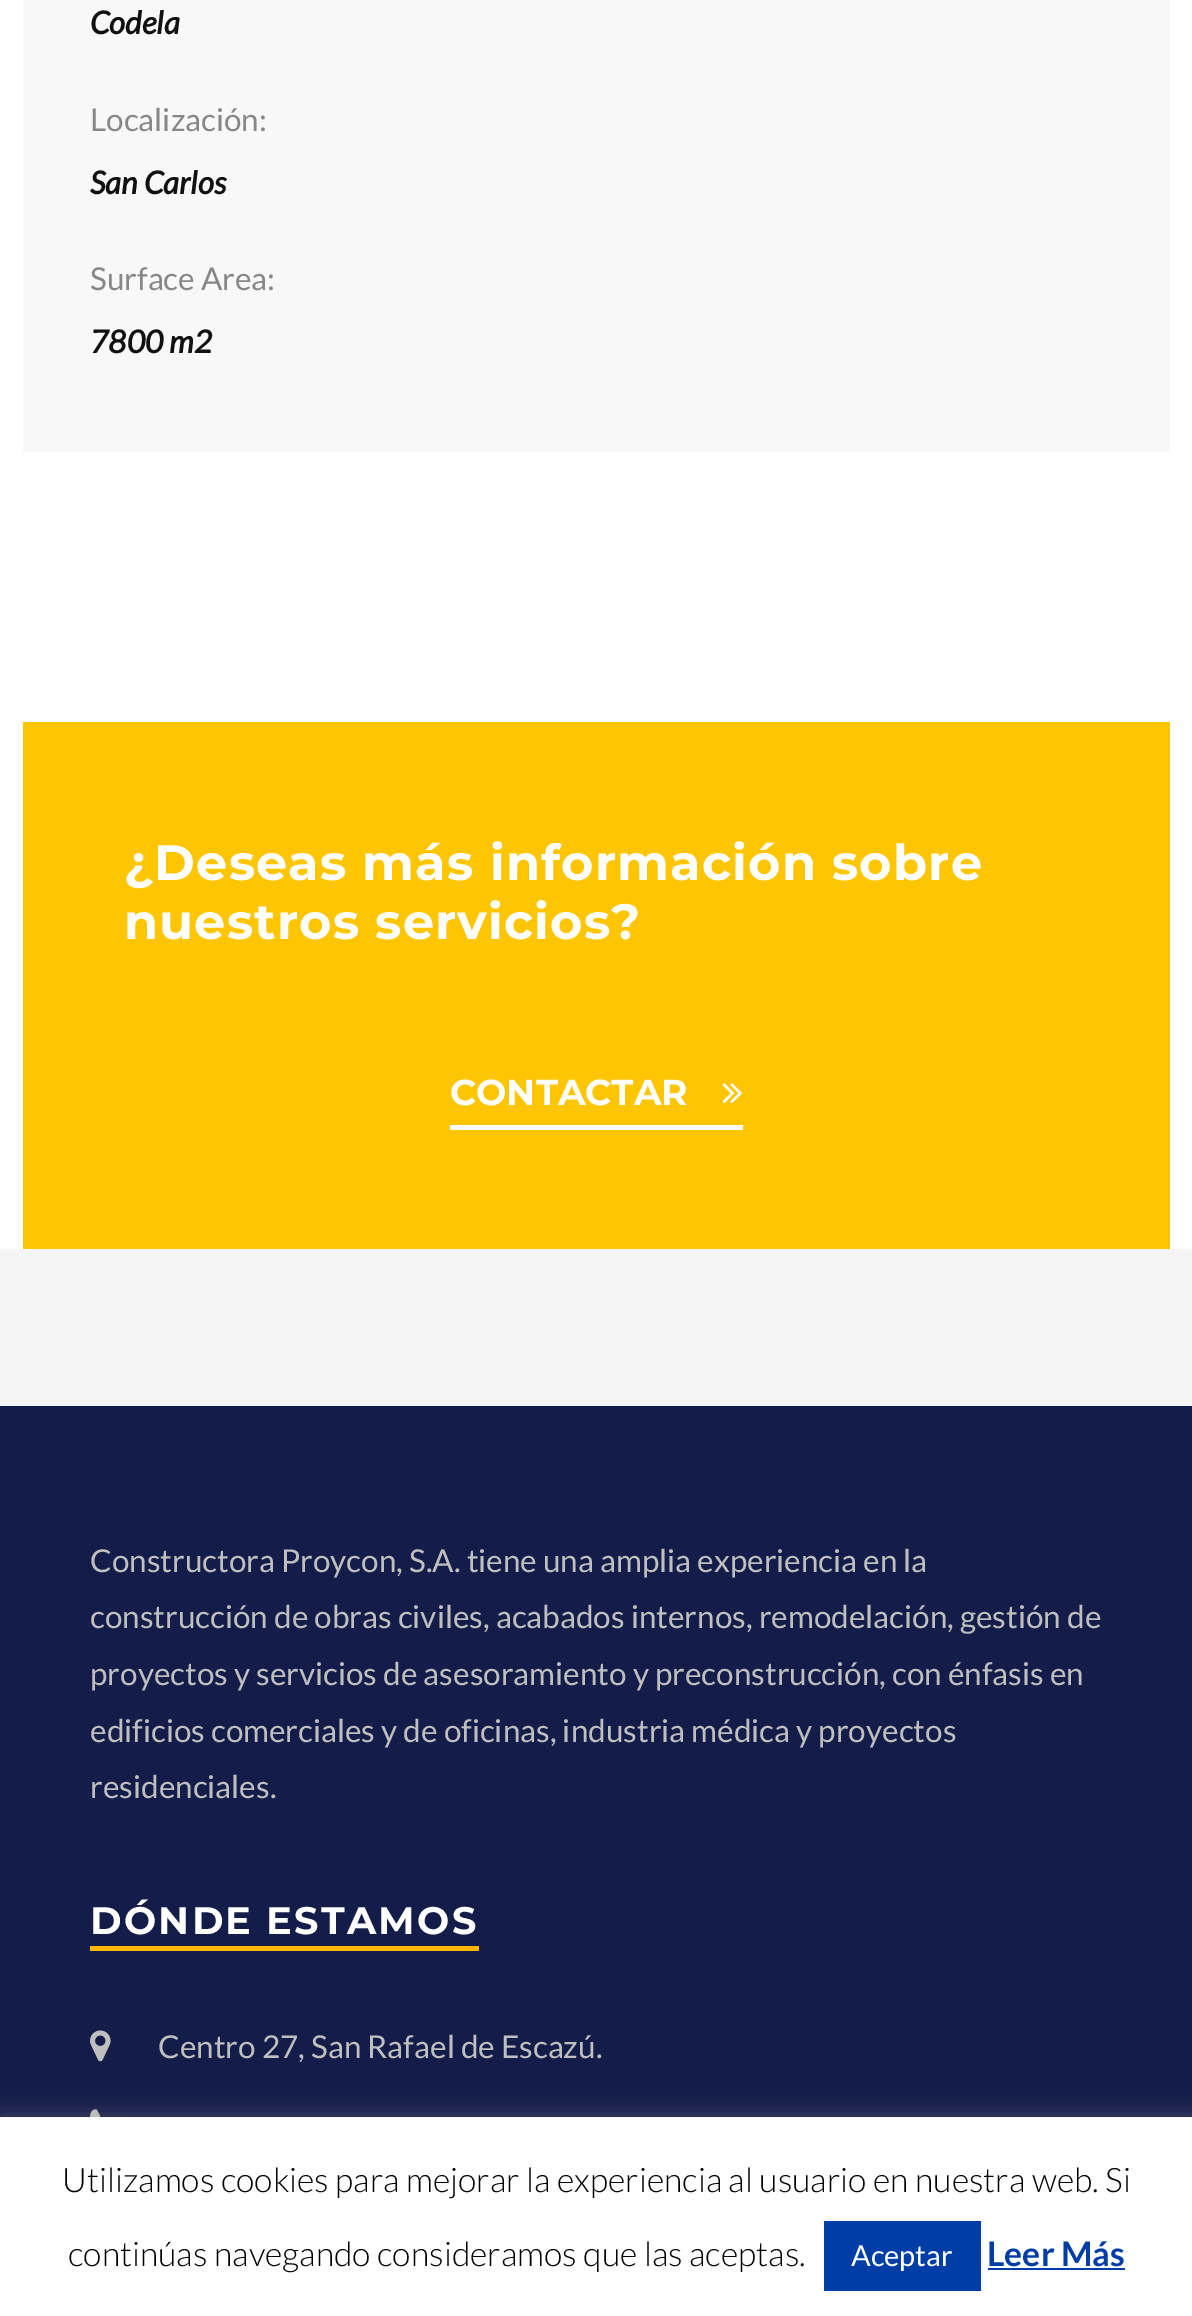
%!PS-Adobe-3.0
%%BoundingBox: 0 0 1192 2316
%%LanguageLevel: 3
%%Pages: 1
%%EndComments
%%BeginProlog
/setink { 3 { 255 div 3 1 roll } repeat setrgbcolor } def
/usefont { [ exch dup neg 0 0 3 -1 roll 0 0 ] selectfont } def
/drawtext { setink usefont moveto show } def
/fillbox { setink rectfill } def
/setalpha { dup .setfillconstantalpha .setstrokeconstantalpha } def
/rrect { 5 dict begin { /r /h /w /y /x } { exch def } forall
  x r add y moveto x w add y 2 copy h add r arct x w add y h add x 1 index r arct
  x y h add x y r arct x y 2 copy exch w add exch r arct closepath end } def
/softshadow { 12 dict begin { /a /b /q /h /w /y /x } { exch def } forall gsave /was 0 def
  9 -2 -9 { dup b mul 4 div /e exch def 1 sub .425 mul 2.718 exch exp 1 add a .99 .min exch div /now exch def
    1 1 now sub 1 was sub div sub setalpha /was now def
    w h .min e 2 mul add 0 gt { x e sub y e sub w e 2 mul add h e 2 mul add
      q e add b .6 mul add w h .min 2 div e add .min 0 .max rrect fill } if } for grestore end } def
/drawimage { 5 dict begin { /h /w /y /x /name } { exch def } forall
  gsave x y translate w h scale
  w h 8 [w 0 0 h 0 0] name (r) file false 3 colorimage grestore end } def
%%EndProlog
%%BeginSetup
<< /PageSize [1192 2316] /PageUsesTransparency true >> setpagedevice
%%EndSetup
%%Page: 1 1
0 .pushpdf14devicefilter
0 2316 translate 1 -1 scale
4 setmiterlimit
0 0 1192 2316 245 245 245 fillbox
0 0 1192 1249 255 255 255 fillbox
23 0 1147 452 248 248 248 fillbox
(Codela) 90 34 /Lato-BoldItalic 31.5 17 17 17 drawtext
(Localización:) 90 131 /Lato-Regular 31.5 135 135 135 drawtext
(San Carlos) 90 194 /Lato-BoldItalic 31.5 17 17 17 drawtext
(Surface Area:) 90 290 /Lato-Regular 31.5 135 135 135 drawtext
(7800 m2) 90 353 /Lato-BoldItalic 31.5 17 17 17 drawtext
23 722 1147 527 253 197 2 fillbox
/Montserrat-Bold 49.5 usefont
255 255 255 setink
124 880 moveto 1.1 0 (¿Deseas más información sobre) ashow
124 939 moveto 1.1 0 (nuestros servicios?) ashow
450 1125 293 5 255 255 255 fillbox
(CONTACTAR) 450 1105 /Montserrat-Bold 36 255 255 255 drawtext
(assets/img1.rgb) 722 1083 20 21 drawimage
0 1406 1192 711 20 28 73 fillbox
(Constructora Proycon, S.A. tiene una amplia experiencia en la) 90 1572 /Lato-Regular 31.5 191 191 191 drawtext
(construcción de obras civiles, acabados internos, remodelación, gestión de) 90 1628 /Lato-Regular 31.5 191 191 191 drawtext
(proyectos y servicios de asesoramiento y preconstrucción, con énfasis en) 90 1685 /Lato-Regular 31.5 191 191 191 drawtext
(edificios comerciales y de oficinas, industria médica y proyectos) 90 1742 /Lato-Regular 31.5 191 191 191 drawtext
(residenciales.) 90 1798 /Lato-Regular 31.5 191 191 191 drawtext
/Montserrat-Bold 38.25 usefont
255 255 255 setink
90 1934 moveto 2.25 0 (DÓNDE ESTAMOS) ashow
90 1946 389 5 255 182 0 fillbox
(assets/img2.rgb) 90 2030 21 32 drawimage
(Centro 27, San Rafael de Escazú.) 158 2058 /Lato-Regular 31.5 191 191 191 drawtext
(assets/img3.rgb) 90 2109 11 8 drawimage
172 171 171 setink
0 2115 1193 200 0 11 0.3 softshadow
0 2117 1192 199 255 255 255 fillbox
(Utilizamos cookies para mejorar la experiencia al usuario en nuestra web. Si) 62 2192 /Lato-Light 33.75 0 0 0 drawtext
(continúas navegando consideramos que las aceptas.) 68 2266 /Lato-Light 33.75 0 0 0 drawtext
824 2221 157 70 0 61 166 fillbox
(Aceptar) 851 2266 /Lato-Regular 29 255 255 255 drawtext
(Leer Más) 987 2266 /Lato-Bold 33.75 0 61 166 drawtext
988 2268 137 2 0 61 166 fillbox
.poppdf14devicefilter showpage
%%EOF
